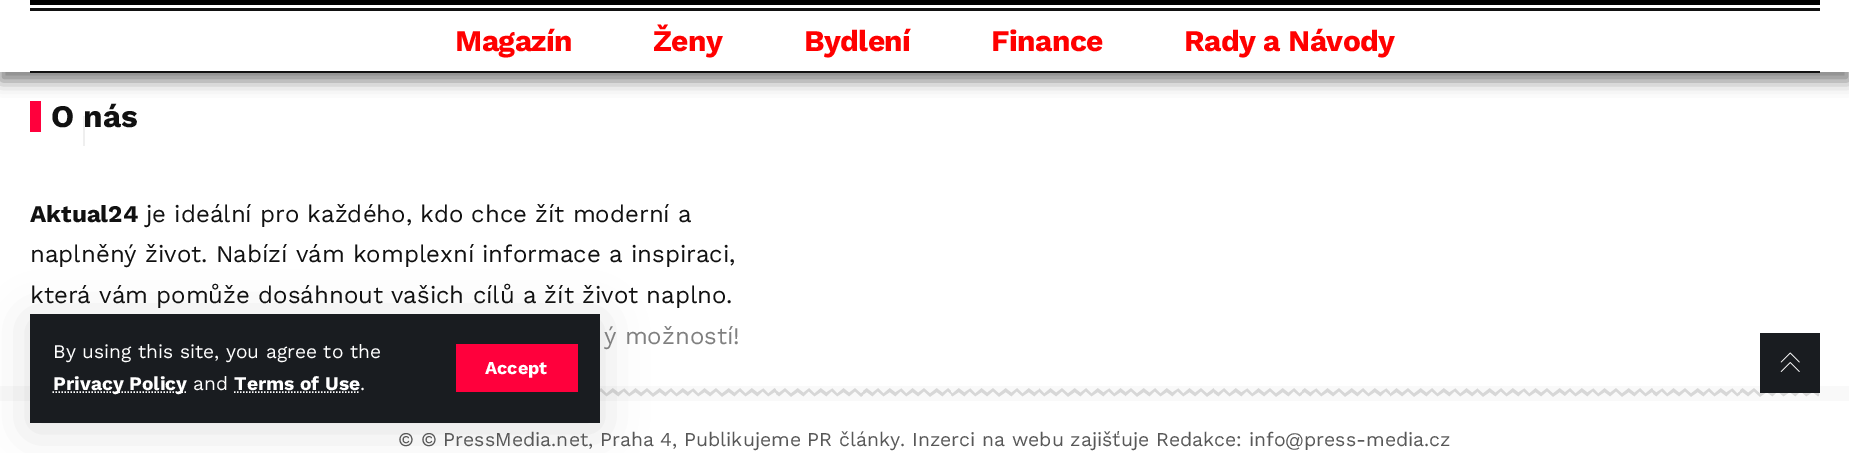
%!PS-Adobe-3.0
%%BoundingBox: 0 0 1849 453
%%LanguageLevel: 3
%%Pages: 1
%%EndComments
%%BeginProlog
/setink { 3 { 255 div 3 1 roll } repeat setrgbcolor } def
/usefont { [ exch dup neg 0 0 3 -1 roll 0 0 ] selectfont } def
/drawtext { setink usefont moveto show } def
/fillbox { setink rectfill } def
/setalpha { dup .setfillconstantalpha .setstrokeconstantalpha } def
/rrect { 5 dict begin { /r /h /w /y /x } { exch def } forall
  x r add y moveto x w add y 2 copy h add r arct x w add y h add x 1 index r arct
  x y h add x y r arct x y 2 copy exch w add exch r arct closepath end } def
/softshadow { 12 dict begin { /a /b /q /h /w /y /x } { exch def } forall gsave /was 0 def
  9 -2 -9 { dup b mul 4 div /e exch def 1 sub .425 mul 2.718 exch exp 1 add a .99 .min exch div /now exch def
    1 1 now sub 1 was sub div sub setalpha /was now def
    w h .min e 2 mul add 0 gt { x e sub y e sub w e 2 mul add h e 2 mul add
      q e add b .6 mul add w h .min 2 div e add .min 0 .max rrect fill } if } for grestore end } def
/drawimage { 5 dict begin { /h /w /y /x /name } { exch def } forall
  gsave x y translate w h scale
  w h 8 [w 0 0 h 0 0] name (r) file false 3 colorimage grestore end } def
%%EndProlog
%%BeginSetup
<< /PageSize [1849 453] /PageUsesTransparency true >> setpagedevice
%%EndSetup
%%Page: 1 1
0 .pushpdf14devicefilter
0 453 translate 1 -1 scale
4 setmiterlimit
0 0 1849 453 255 255 255 fillbox
30 101 11 31 255 0 60 fillbox
0 0 0 setink
0 9 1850 72 0 7.5 0.5 softshadow
0 0 1849 72 255 255 255 fillbox
30 0 1790 5 0 0 0 fillbox
30 8 1790 3 17 17 17 fillbox
30 71 1790 2 17 17 17 fillbox
/WorkSans-Bold 30 usefont
255 0 0 setink
455 51 moveto -0.6 0 (Magazín) ashow
653 51 moveto -0.6 0 (Ženy) ashow
804 51 moveto -0.6 0 (Bydlení) ashow
991 51 moveto -0.6 0 (Finance) ashow
1184 51 moveto -0.6 0 (Rady a Návody) ashow
(O nás) 51 127 /WorkSans-Bold 31.5 17 17 17 drawtext
83 116 2 30 239 239 239 fillbox
0 386 1849 15 249 249 249 fillbox
(assets/img1.rgb) 600 388 1220 9 drawimage
0 0 0 setink
30 320 570 109 0 22.5 0.12 softshadow
30 314 570 109 25 28 32 fillbox
(By using this site, you agree to the) 53 358 /WorkSans-Regular 19.25 255 255 255 drawtext
1.5 setlinewidth
[1.5 1.5] 0 setdash
52.5 392 moveto 186 392 lineto stroke
(Privacy Policy) 53 390 /WorkSans-Bold 19.25 255 255 255 drawtext
(and) 193 390 /WorkSans-Regular 19.25 255 255 255 drawtext
(Terms of Use) 234 390 /WorkSans-Bold 19.25 255 255 255 drawtext
234 392 moveto 359.5 392 lineto stroke
(.) 360 390 /WorkSans-Regular 19.25 255 255 255 drawtext
456 344 122 48 255 0 60 fillbox
(Accept) 485 374 /WorkSans-Bold 18 255 255 255 drawtext
(Aktual24) 30 222 /WorkSans-Bold 24 17 17 17 drawtext
(je ideální pro každého, kdo chce žít moderní a) 146 222 /WorkSans-Regular 24 17 17 17 drawtext
(naplněný život. Nabízí vám komplexní informace a inspiraci,) 30 262 /WorkSans-Regular 24 17 17 17 drawtext
(která vám pomůže dosáhnout vašich cílů a žít život naplno.) 30 303 /WorkSans-Regular 24 17 17 17 drawtext
(ý možností!) 604 344 /WorkSans-Regular 24 128 128 128 drawtext
(© © PressMedia.net, Praha 4, Publikujeme PR články. Inzerci na webu zajišťuje Redakce: info@press-media.cz) 398 446 /WorkSans-Regular 19.5 88 88 88 drawtext
1760 333 60 60 25 28 32 fillbox
(assets/img2.rgb) 1780 352 20 20 drawimage
.poppdf14devicefilter showpage
%%EOF
